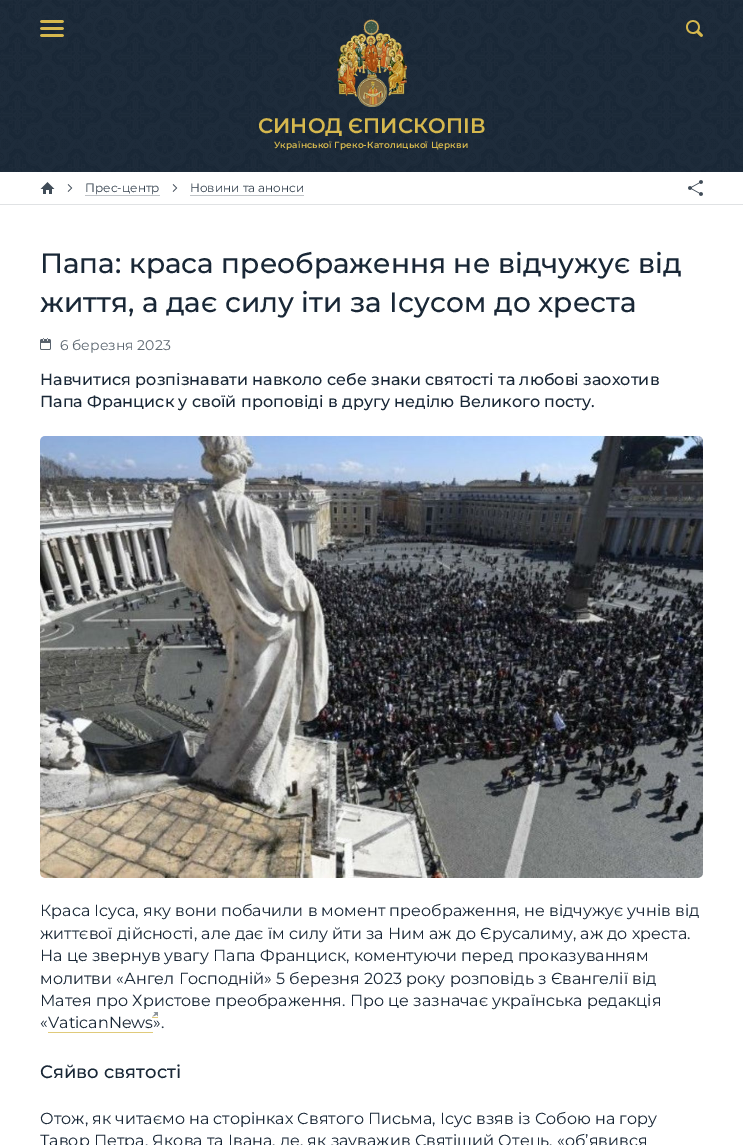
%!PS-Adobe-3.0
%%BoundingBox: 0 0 743 1145
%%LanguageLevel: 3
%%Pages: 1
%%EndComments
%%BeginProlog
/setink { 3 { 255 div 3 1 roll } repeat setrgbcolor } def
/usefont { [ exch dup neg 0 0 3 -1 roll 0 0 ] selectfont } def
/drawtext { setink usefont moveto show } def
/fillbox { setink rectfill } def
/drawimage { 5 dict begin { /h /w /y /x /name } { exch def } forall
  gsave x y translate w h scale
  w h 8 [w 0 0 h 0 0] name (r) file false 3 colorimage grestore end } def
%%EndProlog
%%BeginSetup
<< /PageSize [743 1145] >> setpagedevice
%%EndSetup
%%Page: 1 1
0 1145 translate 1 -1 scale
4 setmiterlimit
0 0 743 1145 255 255 255 fillbox
0 0 743 172 25 39 54 fillbox
(assets/img1.rgb) 0 0 743 172 drawimage
(assets/img2.rgb) 40 20 24 17 drawimage
(assets/img3.rgb) 686 20 17 17 drawimage
(assets/img4.rgb) 337 19 70 88 drawimage
(СИНОД ЄПИСКОПІВ) 258 133 /Montserrat-SemiBold 21 214 184 78 drawtext
/Montserrat-SemiBold 9 usefont
274 148 moveto 0.1 0 (Української Греко-Католицької Церкви) ashow
0 204 743 1 224 226 228 fillbox
(assets/img5.rgb) 40 182 15 12 drawimage
(assets/img6.rgb) 67 184 6 8 drawimage
(Прес-центр) 85 192 /Montserrat-Regular 12 51 64 77 drawtext
85 195 75 1 191 195 199 fillbox
(assets/img6.rgb) 172 184 6 8 drawimage
(Новини та анонси) 190 192 /Montserrat-Regular 12 51 64 77 drawtext
190 195 114 1 191 195 199 fillbox
(assets/img7.rgb) 688 180 15 16 drawimage
(Папа: краса преображення не відчужує від) 40 273 /Montserrat-Medium 28 25 39 54 drawtext
(життя, а дає силу іти за Ісусом до хреста) 40 312 /Montserrat-Medium 28 25 39 54 drawtext
(assets/img8.rgb) 40 338 11 12 drawimage
(6 березня 2023) 60 350 /Montserrat-Regular 14 89 100 110 drawtext
(Навчитися розпізнавати навколо себе знаки святості та любові заохотив) 40 385 /Montserrat-Medium 16 25 39 54 drawtext
(Папа Франциск у своїй проповіді в другу неділю Великого посту.) 40 407 /Montserrat-Medium 16 25 39 54 drawtext
(assets/img9.rgb) 40 436 663 442 drawimage
(Краса Ісуса, яку вони побачили в момент преображення, не відчужує учнів від) 40 916 /Montserrat-Regular 16 25 39 54 drawtext
(життєвої дійсності, але дає їм силу йти за Ним аж до Єрусалиму, аж до хреста.) 40 939 /Montserrat-Regular 16 25 39 54 drawtext
(На це звернув увагу Папа Франциск, коментуючи перед проказуванням) 40 961 /Montserrat-Regular 16 25 39 54 drawtext
(молитви «Ангел Господній» 5 березня 2023 року розповідь з Євангелії від) 40 984 /Montserrat-Regular 16 25 39 54 drawtext
(Матея про Христове преображення. Про це зазначає українська редакція) 40 1006 /Montserrat-Regular 16 25 39 54 drawtext
(«) 40 1028 /Montserrat-Regular 16 25 39 54 drawtext
48 1032 105 1 224 202 122 fillbox
152 1017 6 1 224 202 122 fillbox
(VaticanNews) 48 1028 /Montserrat-Regular 16 25 39 54 drawtext
(assets/img10.rgb) 152 1012 6 5 drawimage
(».) 153 1028 /Montserrat-Regular 16 25 39 54 drawtext
(Сяйво святості) 40 1078 /Montserrat-Medium 18 25 39 54 drawtext
(Отож, як читаємо на сторінках Святого Письма, Ісус взяв із Собою на гору) 40 1124 /Montserrat-Regular 16 25 39 54 drawtext
(Тавор Петра, Якова та Івана, де, як зауважив Святіший Отець, «об’явився) 40 1146 /Montserrat-Regular 16 25 39 54 drawtext
showpage
%%EOF
